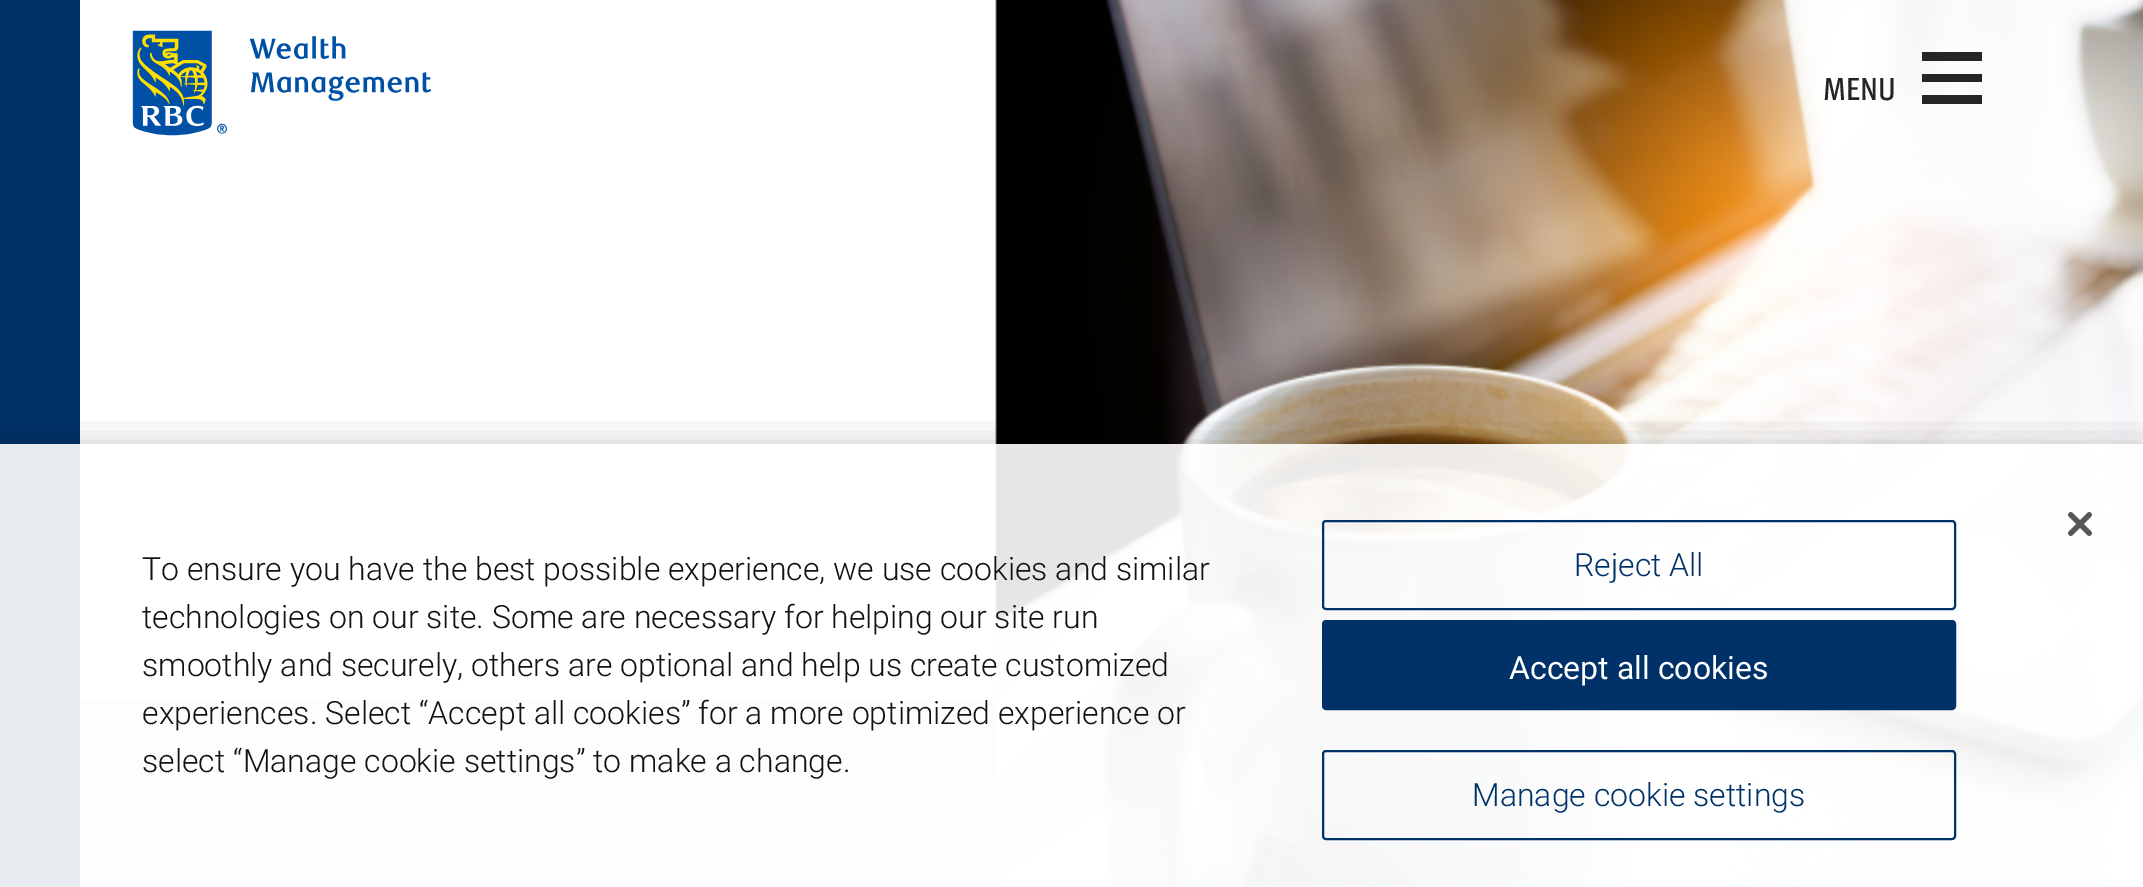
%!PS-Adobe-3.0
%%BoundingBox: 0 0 2143 887
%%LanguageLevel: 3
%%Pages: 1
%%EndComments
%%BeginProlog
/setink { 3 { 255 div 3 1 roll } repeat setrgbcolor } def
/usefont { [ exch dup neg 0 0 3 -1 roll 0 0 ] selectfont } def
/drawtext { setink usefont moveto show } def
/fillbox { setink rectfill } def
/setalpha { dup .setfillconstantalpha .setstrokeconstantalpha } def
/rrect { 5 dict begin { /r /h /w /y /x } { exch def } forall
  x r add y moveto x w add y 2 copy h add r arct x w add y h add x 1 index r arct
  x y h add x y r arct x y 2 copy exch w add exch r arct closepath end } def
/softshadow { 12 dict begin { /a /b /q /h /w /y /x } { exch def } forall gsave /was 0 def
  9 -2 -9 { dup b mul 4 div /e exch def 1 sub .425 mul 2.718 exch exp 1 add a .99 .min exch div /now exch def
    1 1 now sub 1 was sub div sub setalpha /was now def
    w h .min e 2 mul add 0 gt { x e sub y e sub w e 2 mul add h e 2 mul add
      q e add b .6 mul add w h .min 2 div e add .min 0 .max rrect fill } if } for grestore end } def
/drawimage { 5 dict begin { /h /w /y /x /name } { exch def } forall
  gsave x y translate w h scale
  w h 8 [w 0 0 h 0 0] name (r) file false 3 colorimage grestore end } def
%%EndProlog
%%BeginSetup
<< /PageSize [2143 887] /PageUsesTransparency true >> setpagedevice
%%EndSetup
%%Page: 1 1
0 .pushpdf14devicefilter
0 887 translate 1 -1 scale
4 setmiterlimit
0 0 2143 887 255 255 255 fillbox
(assets/img1.rgb) 80 0 2063 887 drawimage
0 0 80 887 0 49 104 fillbox
(assets/img2.rgb) 132 30 300 106 drawimage
(MENU) 1823 100 /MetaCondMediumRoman-Medium 32 37 37 37 drawtext
1982 95 moveto 1982 104 lineto 1922 104 lineto 1922 95 lineto closepath 1982 74 moveto 1982 82 lineto 1922 82 lineto 1922 74 lineto closepath 1982 52 moveto 1982 61 lineto 1922 61 lineto 1922 52 lineto closepath fill
gsave
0 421 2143 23 rectclip
0 0 0 setink
0 444 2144 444 0 18 0.2 softshadow
grestore
0.9 setalpha
0 444 2143 443 255 255 255 fillbox
1 setalpha
(assets/img3.rgb) 2068 512 24 24 drawimage
(To ensure you have the best possible experience, we use cookies and similar) 142 580 /Roboto-Light 32 18 18 18 drawtext
(technologies on our site. Some are necessary for helping our site run) 142 628 /Roboto-Light 32 18 18 18 drawtext
(smoothly and securely, others are optional and help us create customized) 142 676 /Roboto-Light 32 18 18 18 drawtext
(experiences. Select “Accept all cookies” for a more optimized experience or) 142 724 /Roboto-Light 32 18 18 18 drawtext
(select “Manage cookie settings” to make a change.) 142 772 /Roboto-Light 32 18 18 18 drawtext
0 49 105 setink
2 setlinewidth
1323 521 632 88 3 rrect stroke
(Reject All) 1574 576 /Roboto-Light 32 0 49 105 drawtext
1323 621 632 88 3 rrect gsave fill grestore
stroke
(Accept all cookies) 1509 679 /Roboto-Regular 32 255 255 255 drawtext
0 49 105 setink
1323 751 632 88 3 rrect stroke
(Manage cookie settings) 1472 806 /Roboto-Light 32 0 49 105 drawtext
.poppdf14devicefilter showpage
%%EOF
